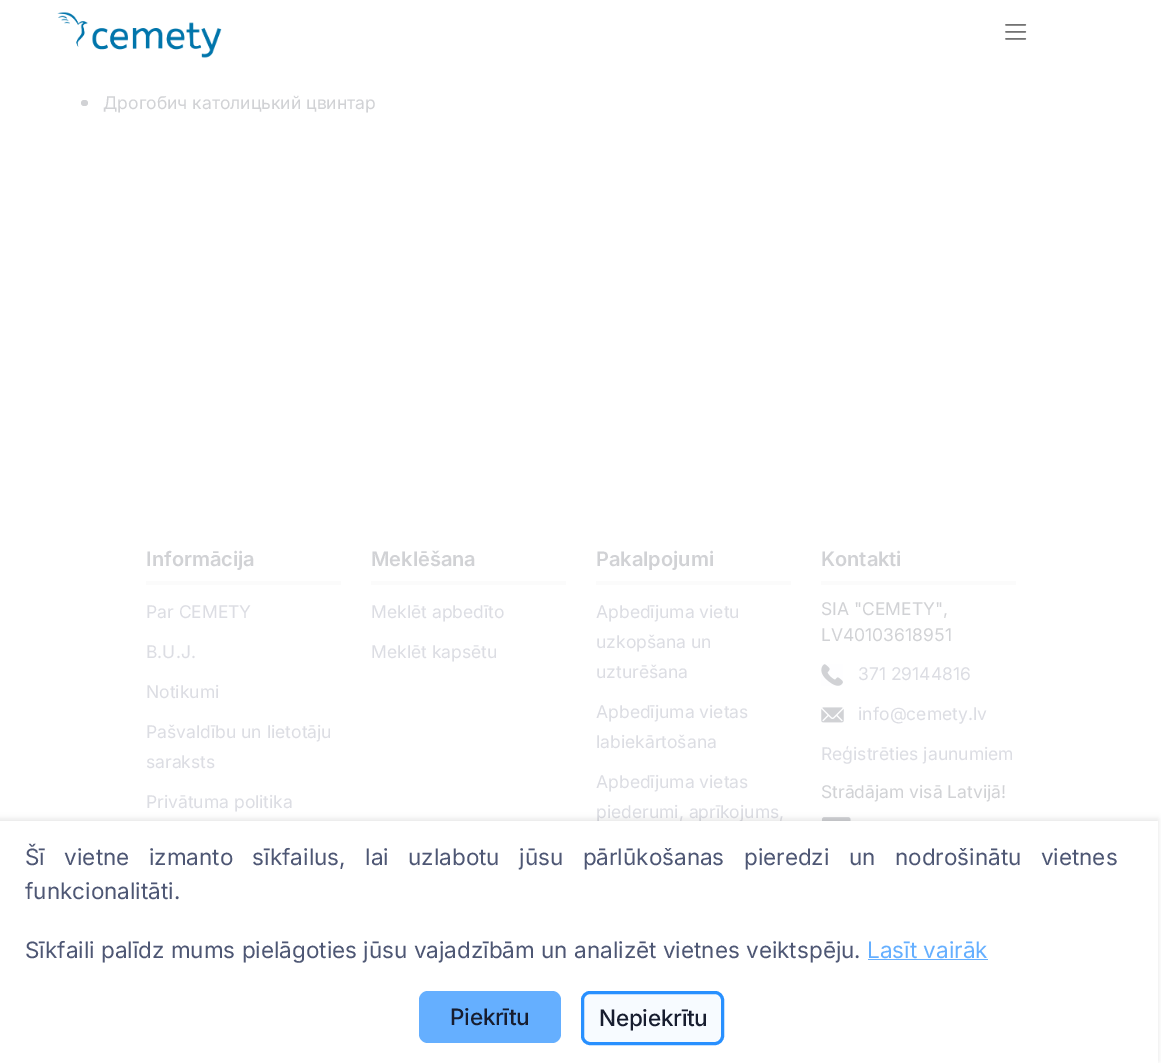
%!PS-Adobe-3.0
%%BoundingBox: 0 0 1161 1063
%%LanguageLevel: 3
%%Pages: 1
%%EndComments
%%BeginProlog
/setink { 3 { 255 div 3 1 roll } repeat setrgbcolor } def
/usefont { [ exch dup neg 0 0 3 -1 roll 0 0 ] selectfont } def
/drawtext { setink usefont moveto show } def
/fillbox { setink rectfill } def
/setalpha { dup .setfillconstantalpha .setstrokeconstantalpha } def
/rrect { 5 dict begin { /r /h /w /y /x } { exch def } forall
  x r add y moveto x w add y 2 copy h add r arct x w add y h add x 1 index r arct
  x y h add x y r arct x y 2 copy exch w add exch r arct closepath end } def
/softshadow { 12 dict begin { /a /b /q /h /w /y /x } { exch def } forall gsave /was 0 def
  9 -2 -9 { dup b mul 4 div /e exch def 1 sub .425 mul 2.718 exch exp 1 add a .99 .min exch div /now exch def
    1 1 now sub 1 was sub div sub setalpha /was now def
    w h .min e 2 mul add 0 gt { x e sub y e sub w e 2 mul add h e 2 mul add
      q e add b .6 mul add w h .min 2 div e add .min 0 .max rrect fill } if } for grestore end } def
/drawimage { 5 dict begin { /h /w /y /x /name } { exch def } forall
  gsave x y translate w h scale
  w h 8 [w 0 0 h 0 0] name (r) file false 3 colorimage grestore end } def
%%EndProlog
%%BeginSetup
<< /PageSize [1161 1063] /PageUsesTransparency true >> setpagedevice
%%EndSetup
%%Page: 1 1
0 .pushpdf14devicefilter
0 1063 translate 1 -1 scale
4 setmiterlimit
0 0 1161 1063 255 255 255 fillbox
(assets/img1.rgb) 57 12 165 46 drawimage
(assets/img2.rgb) 1005 24 22 16 drawimage
209 210 213 setink
81 100 7 6 3 rrect fill
(Дрогобич католицький цвинтар) 103 109 /Inter-Regular 17.5 209 210 213 drawtext
146 581 195 4 251 251 251 fillbox
(Informācija) 146 566 /Inter-SemiBold 20 209 210 213 drawtext
(Par CEMETY) 146 618 /Inter-Regular 17.5 220 221 227 drawtext
(B.U.J.) 146 658 /Inter-Regular 17.5 220 221 227 drawtext
(Notikumi) 146 698 /Inter-Regular 17.5 220 221 227 drawtext
(Pašvaldību un lietotāju) 146 738 /Inter-Regular 17.5 220 221 227 drawtext
(saraksts) 146 768 /Inter-Regular 17.5 220 221 227 drawtext
(Privātuma politika) 146 808 /Inter-Regular 17.5 220 221 227 drawtext
371 581 195 4 251 251 251 fillbox
(Meklēšana) 371 566 /Inter-SemiBold 20 209 210 213 drawtext
(Meklēt apbedīto) 371 618 /Inter-Regular 17.5 220 221 227 drawtext
(Meklēt kapsētu) 371 658 /Inter-Regular 17.5 220 221 227 drawtext
596 581 195 4 251 251 251 fillbox
(Pakalpojumi) 596 566 /Inter-SemiBold 20 209 210 213 drawtext
(Apbedījuma vietu) 596 618 /Inter-Regular 17.5 220 221 227 drawtext
(uzkopšana un) 596 648 /Inter-Regular 17.5 220 221 227 drawtext
(uzturēšana) 596 678 /Inter-Regular 17.5 220 221 227 drawtext
(Apbedījuma vietas) 596 718 /Inter-Regular 17.5 220 221 227 drawtext
(labiekārtošana) 596 748 /Inter-Regular 17.5 220 221 227 drawtext
(Apbedījuma vietas) 596 788 /Inter-Regular 17.5 220 221 227 drawtext
(piederumi, aprīkojums,) 596 818 /Inter-Regular 17.5 220 221 227 drawtext
821 581 195 4 251 251 251 fillbox
(Kontakti) 821 566 /Inter-SemiBold 20 209 210 213 drawtext
(SIA "CEMETY",) 821 615 /Inter-Regular 17.5 209 210 213 drawtext
(LV40103618951) 821 641 /Inter-Regular 17.5 209 210 213 drawtext
(assets/img3.rgb) 821 664 22 22 drawimage
(371 29144816) 858 680 /Inter-Regular 17.5 220 221 227 drawtext
(assets/img4.rgb) 821 707 23 16 drawimage
(info@cemety.lv) 858 720 /Inter-Regular 17.5 220 221 227 drawtext
(Reģistrēties jaunumiem) 821 760 /Inter-Regular 17.5 220 221 227 drawtext
(Strādājam visā Latvijā!) 821 798 /Inter-Regular 17.5 209 210 213 drawtext
(assets/img5.rgb) 821 817 30 4 drawimage
0 0 0 setink
-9 819 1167 242 0 3 0.1 softshadow
0 821 1158 242 255 255 255 fillbox
/Inter-Regular 22.5 usefont
78 87 116 setink
25 865 moveto 13.1 0 32 (Šī vietne izmanto sīkfailus, lai uzlabotu jūsu pārlūkošanas pieredzi un nodrošinātu vietnes) widthshow
(funkcionalitāti.) 25 899 /Inter-Regular 22.5 78 87 116 drawtext
(Sīkfaili palīdz mums pielāgoties jūsu vajadzībām un analizēt vietnes veiktspēju.) 25 958 /Inter-Regular 22.5 78 87 116 drawtext
(Lasīt vairāk) 867 958 /Inter-Regular 22.5 101 175 255 drawtext
868 959 120 1 101 175 255 fillbox
419 991 142 52 9 rrect fill
/Inter-Medium 22.5 usefont
23 29 47 setink
450 1025 moveto -0.25 0 (Piekrītu) ashow
247 251 255 setink
582.5 992.5 140 51 7.5 rrect gsave fill grestore
40 144 255 setink
3 setlinewidth
stroke
23 29 47 setink
599 1026 moveto -0.25 0 (Nepiekrītu) ashow
.poppdf14devicefilter showpage
%%EOF
